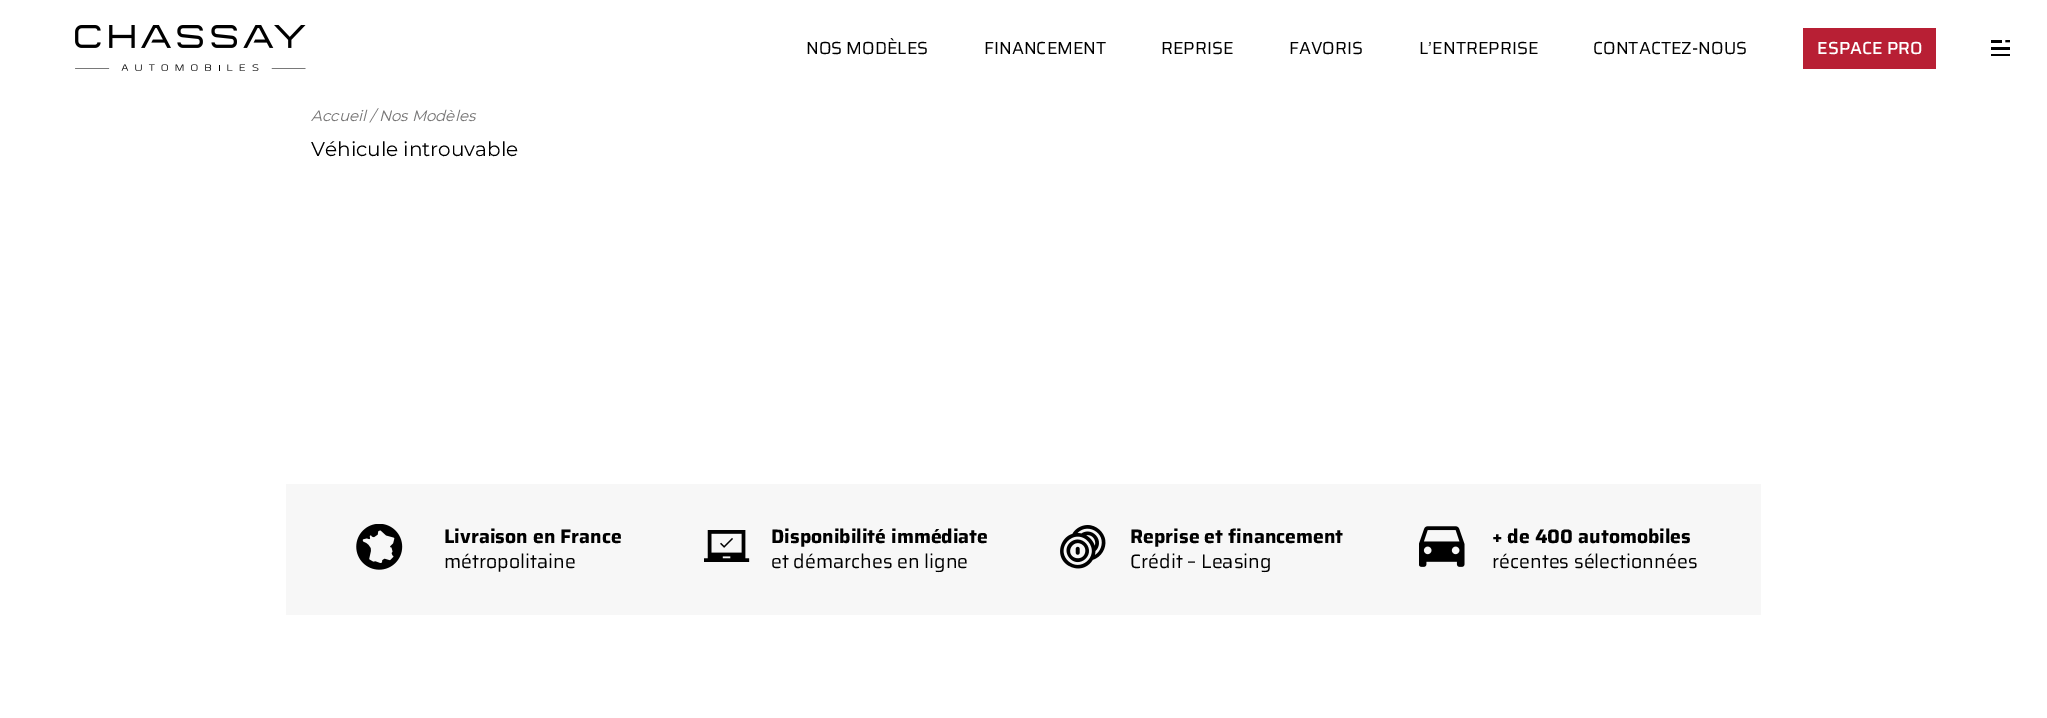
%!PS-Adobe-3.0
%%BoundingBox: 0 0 2047 718
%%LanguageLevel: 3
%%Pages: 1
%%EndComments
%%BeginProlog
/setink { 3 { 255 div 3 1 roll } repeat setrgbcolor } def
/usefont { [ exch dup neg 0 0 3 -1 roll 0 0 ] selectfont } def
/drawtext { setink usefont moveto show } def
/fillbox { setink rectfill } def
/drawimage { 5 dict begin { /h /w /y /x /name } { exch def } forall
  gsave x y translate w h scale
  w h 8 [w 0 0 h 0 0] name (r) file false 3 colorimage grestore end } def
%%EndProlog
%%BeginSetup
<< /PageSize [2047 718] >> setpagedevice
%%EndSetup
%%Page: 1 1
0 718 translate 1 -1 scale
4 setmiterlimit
0 0 2047 718 255 255 255 fillbox
(assets/img1.rgb) 75 25 231 46 drawimage
(NOS MODÈLES) 806 54 /Saira-Regular 17.5 0 0 0 drawtext
(FINANCEMENT) 984 54 /Saira-Regular 17.5 0 0 0 drawtext
(REPRISE) 1161 54 /Saira-Regular 17.5 0 0 0 drawtext
(FAVORIS) 1289 54 /Saira-Regular 17.5 0 0 0 drawtext
(L’ENTREPRISE) 1419 54 /Saira-Regular 17.5 0 0 0 drawtext
(CONTACTEZ-NOUS) 1593 54 /Saira-Regular 17.5 0 0 0 drawtext
1803 28 133 41 184 31 52 fillbox
(ESPACE PRO) 1817 54 /Saira-Medium 17.5 255 255 255 drawtext
(assets/img2.rgb) 1991 40 19 16 drawimage
(Accueil / Nos Modèles) 311 121 /Montserrat-Italic 15 117 116 116 drawtext
(Véhicule introuvable) 311 156 /Montserrat-Regular 20 0 0 0 drawtext
286 484 1475 131 247 247 247 fillbox
(assets/img3.rgb) 356 524 47 46 drawimage
(Livraison en France) 444 543 /Saira-Bold 19.5 0 0 0 drawtext
(métropolitaine) 444 568 /Saira-Regular 19.5 0 0 0 drawtext
(assets/img4.rgb) 704 530 46 32 drawimage
(Disponibilité immédiate) 771 543 /Saira-Bold 19.5 0 0 0 drawtext
(et démarches en ligne) 771 568 /Saira-Regular 19.5 0 0 0 drawtext
(assets/img5.rgb) 1060 525 46 44 drawimage
(Reprise et financement) 1130 543 /Saira-Bold 19.5 0 0 0 drawtext
(Crédit – Leasing) 1130 568 /Saira-Regular 19.5 0 0 0 drawtext
(assets/img6.rgb) 1419 526 46 41 drawimage
(+ de 400 automobiles) 1492 543 /Saira-Bold 19.5 0 0 0 drawtext
(récentes sélectionnées) 1492 568 /Saira-Regular 19.5 0 0 0 drawtext
showpage
%%EOF
